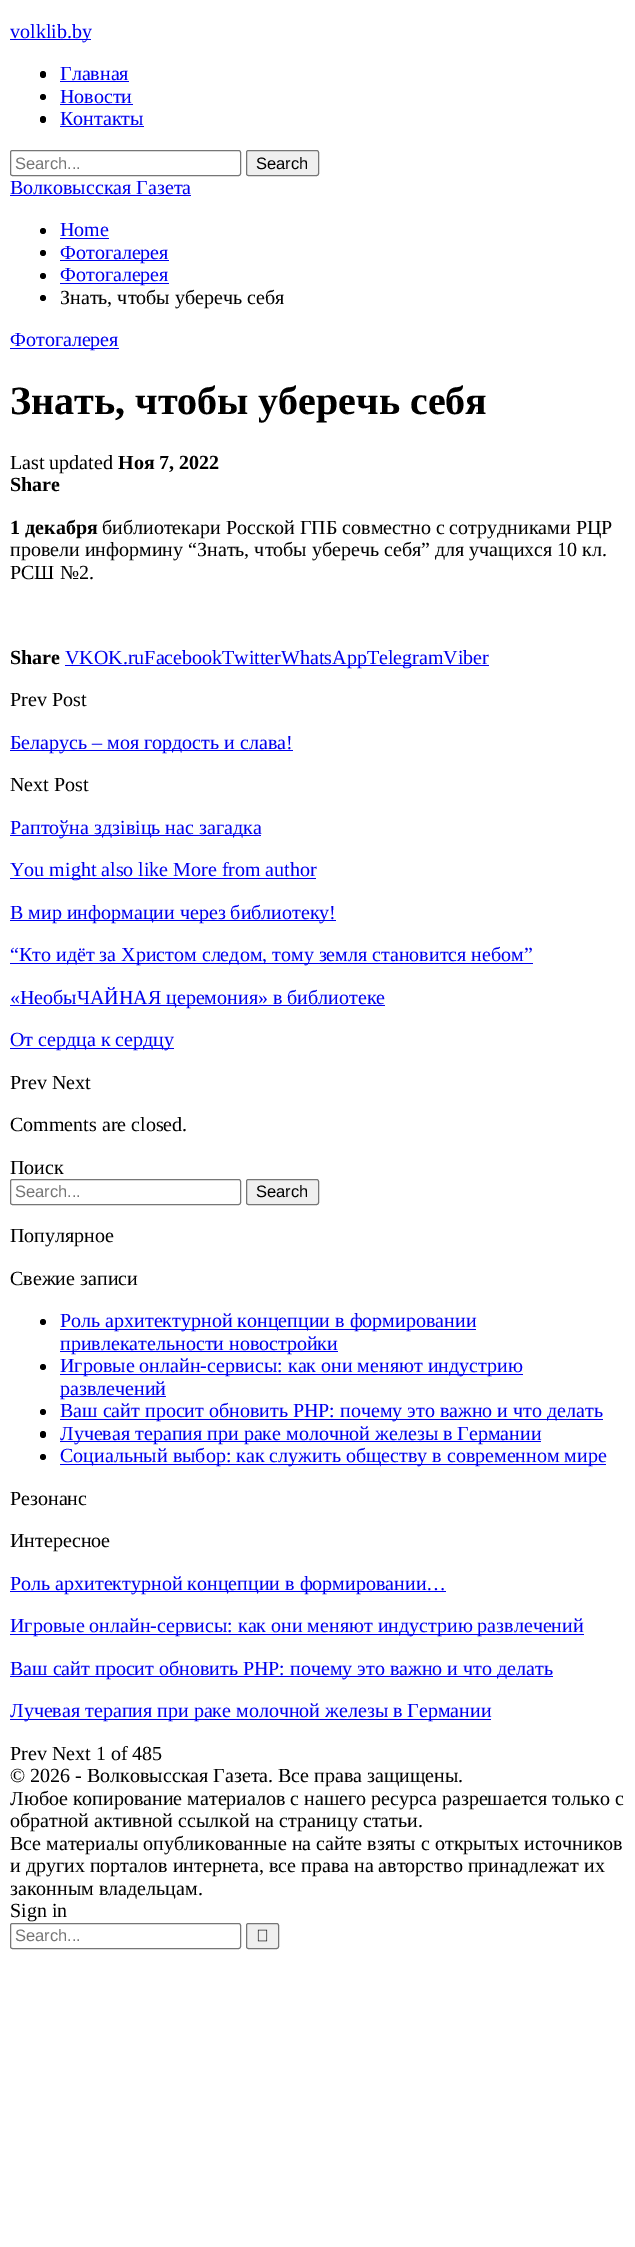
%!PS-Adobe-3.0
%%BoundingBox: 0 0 635 2247
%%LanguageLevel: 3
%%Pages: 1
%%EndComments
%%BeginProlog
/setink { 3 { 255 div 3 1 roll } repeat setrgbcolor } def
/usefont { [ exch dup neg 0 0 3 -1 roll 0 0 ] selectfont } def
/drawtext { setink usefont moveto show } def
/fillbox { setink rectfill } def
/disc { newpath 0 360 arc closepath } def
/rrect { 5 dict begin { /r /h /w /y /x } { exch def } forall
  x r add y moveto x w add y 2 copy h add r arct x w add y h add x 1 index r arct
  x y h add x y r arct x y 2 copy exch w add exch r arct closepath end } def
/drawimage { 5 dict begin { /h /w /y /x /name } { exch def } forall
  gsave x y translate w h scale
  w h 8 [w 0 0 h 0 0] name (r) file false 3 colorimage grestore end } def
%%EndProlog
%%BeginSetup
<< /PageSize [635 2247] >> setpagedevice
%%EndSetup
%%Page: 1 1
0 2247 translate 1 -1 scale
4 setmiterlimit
0 0 635 2247 255 255 255 fillbox
10 39 81 1 0 0 238 fillbox
(volklib.by) 10 38 /LiberationSerif-Regular 20 0 0 238 drawtext
0 0 0 setink
40 71 6 7 3 rrect fill
(Главная) 60 80 /LiberationSerif-Regular 20 0 0 238 drawtext
60 81 69 1 0 0 238 fillbox
0 0 0 setink
43 97 3 disc fill
(Новости) 60 103 /LiberationSerif-Regular 20 0 0 238 drawtext
60 104 73 1 0 0 238 fillbox
0 0 0 setink
40 116 6 7 3 rrect fill
(Контакты) 60 125 /LiberationSerif-Regular 20 0 0 238 drawtext
60 126 84 1 0 0 238 fillbox
118 118 118 setink
10.5 150.5 230 25 2 rrect stroke
(Search...) 15 169 /LiberationSans-Regular 16.5 117 117 117 drawtext
239 239 239 setink
246.5 150.5 72 25 2 rrect gsave fill grestore
118 118 118 setink
stroke
(Search) 256 169 /LiberationSans-Regular 16.5 0 0 0 drawtext
(Волковысская Газета) 10 194 /LiberationSerif-Regular 20 0 0 238 drawtext
10 195 181 1 0 0 238 fillbox
0 0 0 setink
43 231 3 disc fill
(Home) 60 236 /LiberationSerif-Regular 20 0 0 238 drawtext
60 238 49 1 0 0 238 fillbox
0 0 0 setink
43 253 3 disc fill
60 260 109 1 0 0 238 fillbox
(Фотогалерея) 60 259 /LiberationSerif-Regular 20 0 0 238 drawtext
0 0 0 setink
43 276 3 disc fill
60 283 109 1 0 0 238 fillbox
(Фотогалерея) 60 281 /LiberationSerif-Regular 20 0 0 238 drawtext
0 0 0 setink
43 298 3 disc fill
(Знать, чтобы уберечь себя) 60 304 /LiberationSerif-Regular 20 0 0 0 drawtext
10 348 109 1 0 0 238 fillbox
(Фотогалерея) 10 346 /LiberationSerif-Regular 20 0 0 238 drawtext
(Знать, чтобы уберечь себя) 10 414 /LiberationSerif-Bold 40 0 0 0 drawtext
(Last updated) 10 469 /LiberationSerif-Regular 20 0 0 0 drawtext
(Ноя 7, 2022) 118 469 /LiberationSerif-Bold 20 0 0 0 drawtext
(Share) 10 491 /LiberationSerif-Bold 20 0 0 0 drawtext
(1 декабря) 10 534 /LiberationSerif-Bold 20 0 0 0 drawtext
(библиотекари Росской ГПБ совместно с сотрудниками РЦР) 102 534 /LiberationSerif-Regular 20 0 0 0 drawtext
(провели информину “Знать, чтобы уберечь себя” для учащихся 10 кл.) 10 556 /LiberationSerif-Regular 20 0 0 0 drawtext
(РСШ №2.) 10 579 /LiberationSerif-Regular 20 0 0 0 drawtext
(Share) 10 664 /LiberationSerif-Bold 20 0 0 0 drawtext
65 665 424 1 0 0 238 fillbox
(VKOK.ruFacebookTwitterWhatsAppTelegramViber) 65 664 /LiberationSerif-Regular 20 0 0 238 drawtext
(Prev Post) 10 706 /LiberationSerif-Regular 20 0 0 0 drawtext
10 750 283 1 0 0 238 fillbox
(Беларусь – моя гордость и слава!) 10 749 /LiberationSerif-Regular 20 0 0 238 drawtext
(Next Post) 10 791 /LiberationSerif-Regular 20 0 0 0 drawtext
10 835 251 1 0 0 238 fillbox
(Раптоўна здзівіць нас загадка) 10 834 /LiberationSerif-Regular 20 0 0 238 drawtext
10 878 306 1 0 0 238 fillbox
(You might also like More from author) 10 876 /LiberationSerif-Regular 20 0 0 238 drawtext
10 920 326 1 0 0 238 fillbox
(В мир информации через библиотеку!) 10 919 /LiberationSerif-Regular 20 0 0 238 drawtext
10 963 523 1 0 0 238 fillbox
(“Кто идёт за Христом следом, тому земля становится небом”) 10 961 /LiberationSerif-Regular 20 0 0 238 drawtext
10 1005 375 1 0 0 238 fillbox
(«НеобыЧАЙНАЯ церемония» в библиотеке) 10 1004 /LiberationSerif-Regular 20 0 0 238 drawtext
10 1048 164 1 0 0 238 fillbox
(От сердца к сердцу) 10 1046 /LiberationSerif-Regular 20 0 0 238 drawtext
(Prev Next) 10 1089 /LiberationSerif-Regular 20 0 0 0 drawtext
(Comments are closed.) 10 1131 /LiberationSerif-Regular 20 0 0 0 drawtext
(Поиск) 10 1174 /LiberationSerif-Regular 20 0 0 0 drawtext
118 118 118 setink
10.5 1179.5 230 25 2 rrect stroke
(Search...) 15 1197 /LiberationSans-Regular 16.5 117 117 117 drawtext
239 239 239 setink
246.5 1179.5 72 25 2 rrect gsave fill grestore
118 118 118 setink
stroke
(Search) 256 1197 /LiberationSans-Regular 16.5 0 0 0 drawtext
(Популярное) 10 1242 /LiberationSerif-Regular 20 0 0 0 drawtext
(Свежие записи) 10 1285 /LiberationSerif-Regular 20 0 0 0 drawtext
43 1322 3 disc fill
60 1329 416 1 0 0 238 fillbox
(Роль архитектурной концепции в формировании) 60 1327 /LiberationSerif-Regular 20 0 0 238 drawtext
60 1351 278 1 0 0 238 fillbox
(привлекательности новостройки) 60 1350 /LiberationSerif-Regular 20 0 0 238 drawtext
0 0 0 setink
43 1367 3 disc fill
60 1374 463 1 0 0 238 fillbox
(Игровые онлайн-сервисы: как они меняют индустрию) 60 1372 /LiberationSerif-Regular 20 0 0 238 drawtext
60 1396 106 1 0 0 238 fillbox
(развлечений) 60 1395 /LiberationSerif-Regular 20 0 0 238 drawtext
0 0 0 setink
43 1412 3 disc fill
60 1419 543 1 0 0 238 fillbox
(Ваш сайт просит обновить PHP: почему это важно и что делать) 60 1417 /LiberationSerif-Regular 20 0 0 238 drawtext
0 0 0 setink
40 1431 6 7 3 rrect fill
60 1441 481 1 0 0 238 fillbox
(Лучевая терапия при раке молочной железы в Германии) 60 1440 /LiberationSerif-Regular 20 0 0 238 drawtext
0 0 0 setink
43 1457 3 disc fill
60 1464 546 1 0 0 238 fillbox
(Социальный выбор: как служить обществу в современном мире) 60 1462 /LiberationSerif-Regular 20 0 0 238 drawtext
(Резонанс) 10 1505 /LiberationSerif-Regular 20 0 0 0 drawtext
(Интересное) 10 1547 /LiberationSerif-Regular 20 0 0 0 drawtext
10 1591 436 1 0 0 238 fillbox
(Роль архитектурной концепции в формировании…) 10 1590 /LiberationSerif-Regular 20 0 0 238 drawtext
10 1634 574 1 0 0 238 fillbox
(Игровые онлайн-сервисы: как они меняют индустрию развлечений) 10 1632 /LiberationSerif-Regular 20 0 0 238 drawtext
10 1676 543 1 0 0 238 fillbox
(Ваш сайт просит обновить PHP: почему это важно и что делать) 10 1675 /LiberationSerif-Regular 20 0 0 238 drawtext
10 1719 481 1 0 0 238 fillbox
(Лучевая терапия при раке молочной железы в Германии) 10 1717 /LiberationSerif-Regular 20 0 0 238 drawtext
(Prev Next 1 of 485) 10 1760 /LiberationSerif-Regular 20 0 0 0 drawtext
(© 2026 - Волковысская Газета. Все права защищены.) 10 1782 /LiberationSerif-Regular 20 0 0 0 drawtext
(Любое копирование материалов с нашего ресурса разрешается только с) 10 1805 /LiberationSerif-Regular 20 0 0 0 drawtext
(обратной активной ссылкой на страницу статьи.) 10 1827 /LiberationSerif-Regular 20 0 0 0 drawtext
(Все материалы опубликованные на сайте взяты с открытых источников) 10 1850 /LiberationSerif-Regular 20 0 0 0 drawtext
(и других порталов интернета, все права на авторство принадлежат их) 10 1872 /LiberationSerif-Regular 20 0 0 0 drawtext
(законным владельцам.) 10 1895 /LiberationSerif-Regular 20 0 0 0 drawtext
(Sign in) 10 1917 /LiberationSerif-Regular 20 0 0 0 drawtext
118 118 118 setink
10.5 1923.5 230 25 2 rrect stroke
(Search...) 15 1941 /LiberationSans-Regular 16.5 117 117 117 drawtext
239 239 239 setink
246.5 1923.5 32 25 2 rrect gsave fill grestore
118 118 118 setink
stroke
(assets/img1.rgb) 257 1929 11 13 drawimage
showpage
%%EOF
